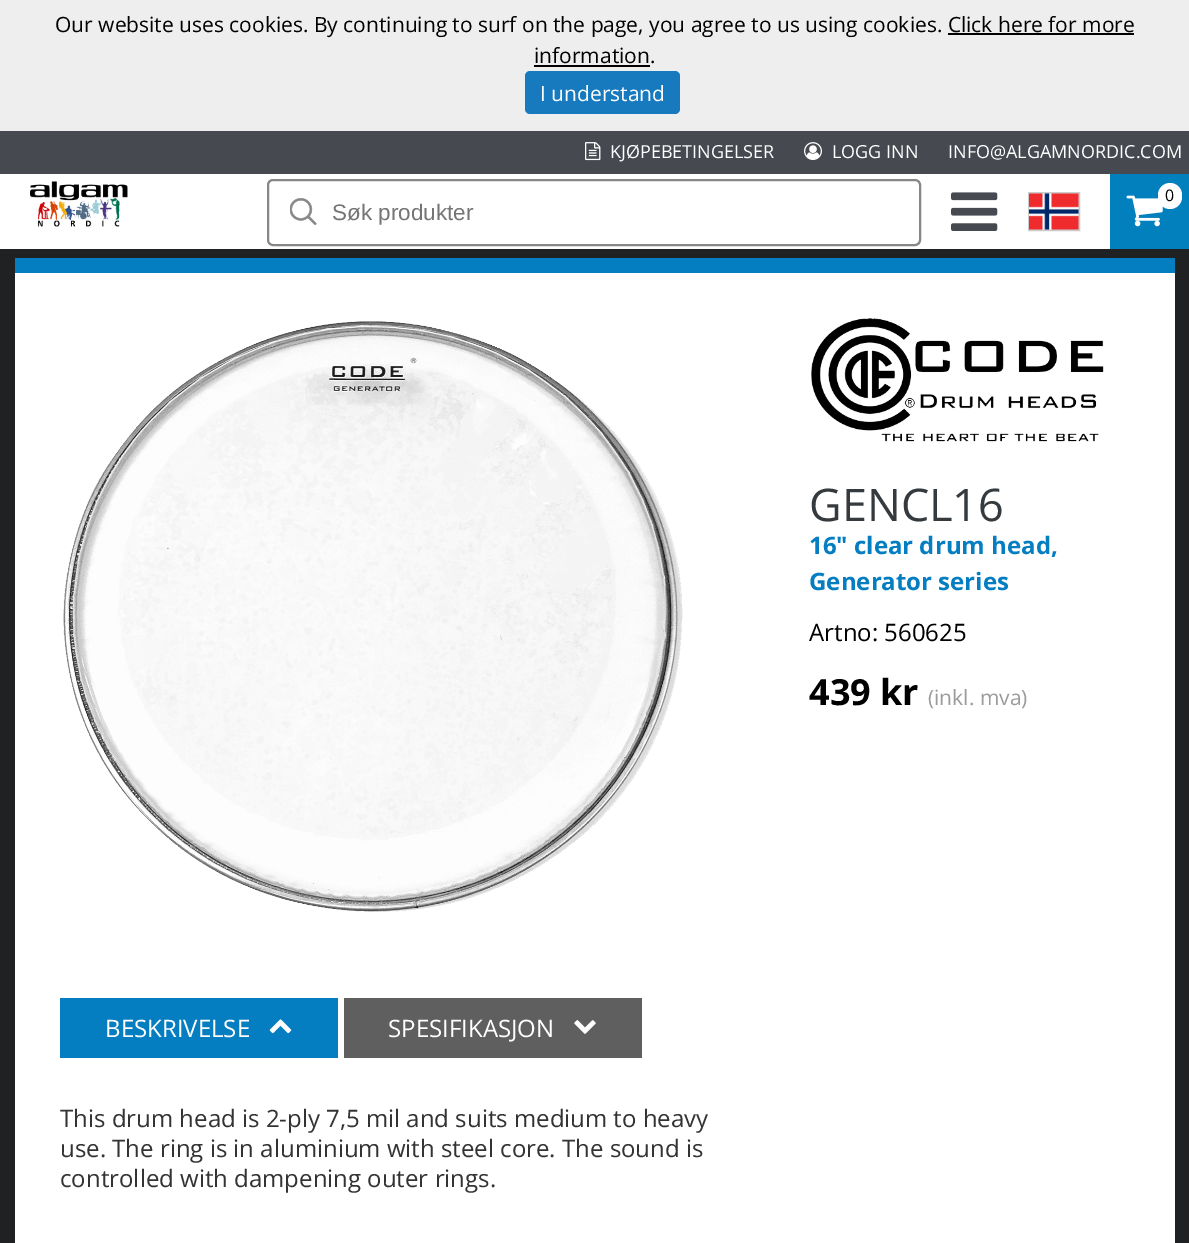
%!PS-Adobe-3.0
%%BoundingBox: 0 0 1189 1243
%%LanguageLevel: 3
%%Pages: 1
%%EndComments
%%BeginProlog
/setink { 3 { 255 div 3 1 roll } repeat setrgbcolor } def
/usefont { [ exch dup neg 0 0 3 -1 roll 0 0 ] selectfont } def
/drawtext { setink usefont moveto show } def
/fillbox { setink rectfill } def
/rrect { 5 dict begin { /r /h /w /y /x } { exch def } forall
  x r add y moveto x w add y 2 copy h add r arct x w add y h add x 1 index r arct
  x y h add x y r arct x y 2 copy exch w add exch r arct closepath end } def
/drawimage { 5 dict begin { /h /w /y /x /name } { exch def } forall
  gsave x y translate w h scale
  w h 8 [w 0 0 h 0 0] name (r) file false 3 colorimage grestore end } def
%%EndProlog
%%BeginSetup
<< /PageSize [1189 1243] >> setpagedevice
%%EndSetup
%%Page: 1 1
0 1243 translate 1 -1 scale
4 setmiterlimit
0 0 1189 1243 32 33 35 fillbox
0 0 1189 131 238 238 238 fillbox
(Our website uses cookies. By continuing to surf on the page, you agree to us using cookies. Click here for more) 55 32 /OpenSans-Regular 21 0 0 0 drawtext
(information.) 534 63 /OpenSans-Regular 21 0 0 0 drawtext
948 33 186 2 0 0 0 fillbox
534 65 116 2 0 0 0 fillbox
23 121 190 setink
525 71 155 43 5 rrect fill
(I understand) 540 101 /OpenSans-Regular 21 255 255 255 drawtext
0 131 1189 43 70 73 80 fillbox
(assets/img1.rgb) 585 142 16 19 drawimage
(KJØPEBETINGELSER) 610 158 /OpenSans-Regular 18 255 255 255 drawtext
(assets/img2.rgb) 804 142 18 19 drawimage
(LOGG INN) 832 158 /OpenSans-Regular 18 255 255 255 drawtext
(INFO@ALGAMNORDIC.COM) 948 158 /OpenSans-Regular 18 255 255 255 drawtext
0 174 1110 75 255 255 255 fillbox
(assets/img3.rgb) 30 181 98 46 drawimage
135 135 135 setink
2 setlinewidth
268 180 652 65 5 rrect stroke
(assets/img4.rgb) 290 198 27 27 drawimage
(Søk produkter) 332 220 /LiberationSans-Regular 22.5 117 117 117 drawtext
(assets/img5.rgb) 951 192 47 39 drawimage
204 204 204 setink
1029 193 50 37 rectstroke
(assets/img6.rgb) 1029 193 50 37 drawimage
1110 174 79 75 2 128 189 fillbox
(assets/img7.rgb) 1126 195 37 32 drawimage
255 255 255 setink
1158 183 24 26 12 rrect fill
(0) 1165 201 /OpenSans-Regular 16 0 0 0 drawtext
15 273 1160 970 255 255 255 fillbox
15 258 1160 15 4 126 193 fillbox
(assets/img8.rgb) 63 321 620 591 drawimage
(assets/img9.rgb) 811 318 293 124 drawimage
(GENCL16) 809 521 /OpenSans-Regular 45 53 58 62 drawtext
(16" clear drum head,) 809 554 /OpenSans-Bold 24 4 126 193 drawtext
(Generator series) 809 590 /OpenSans-Bold 24 4 126 193 drawtext
(Artno: 560625) 809 641 /OpenSans-Regular 24 0 0 0 drawtext
(439 kr) 809 705 /OpenSans-Bold 36 0 0 0 drawtext
(\(inkl. mva\)) 928 705 /OpenSans-Regular 21 155 155 155 drawtext
60 998 278 60 4 126 193 fillbox
(BESKRIVELSE) 105 1037 /OpenSans-Regular 24 255 255 255 drawtext
(assets/img10.rgb) 269 1019 23 15 drawimage
344 998 298 60 95 95 95 fillbox
(SPESIFIKASJON) 388 1037 /OpenSans-Regular 24 255 255 255 drawtext
(assets/img11.rgb) 574 1020 22 14 drawimage
(This drum head is 2-ply 7,5 mil and suits medium to heavy) 60 1127 /OpenSans-Regular 24 51 51 51 drawtext
(use. The ring is in aluminium with steel core. The sound is) 60 1157 /OpenSans-Regular 24 51 51 51 drawtext
(controlled with dampening outer rings.) 60 1187 /OpenSans-Regular 24 51 51 51 drawtext
showpage
%%EOF
